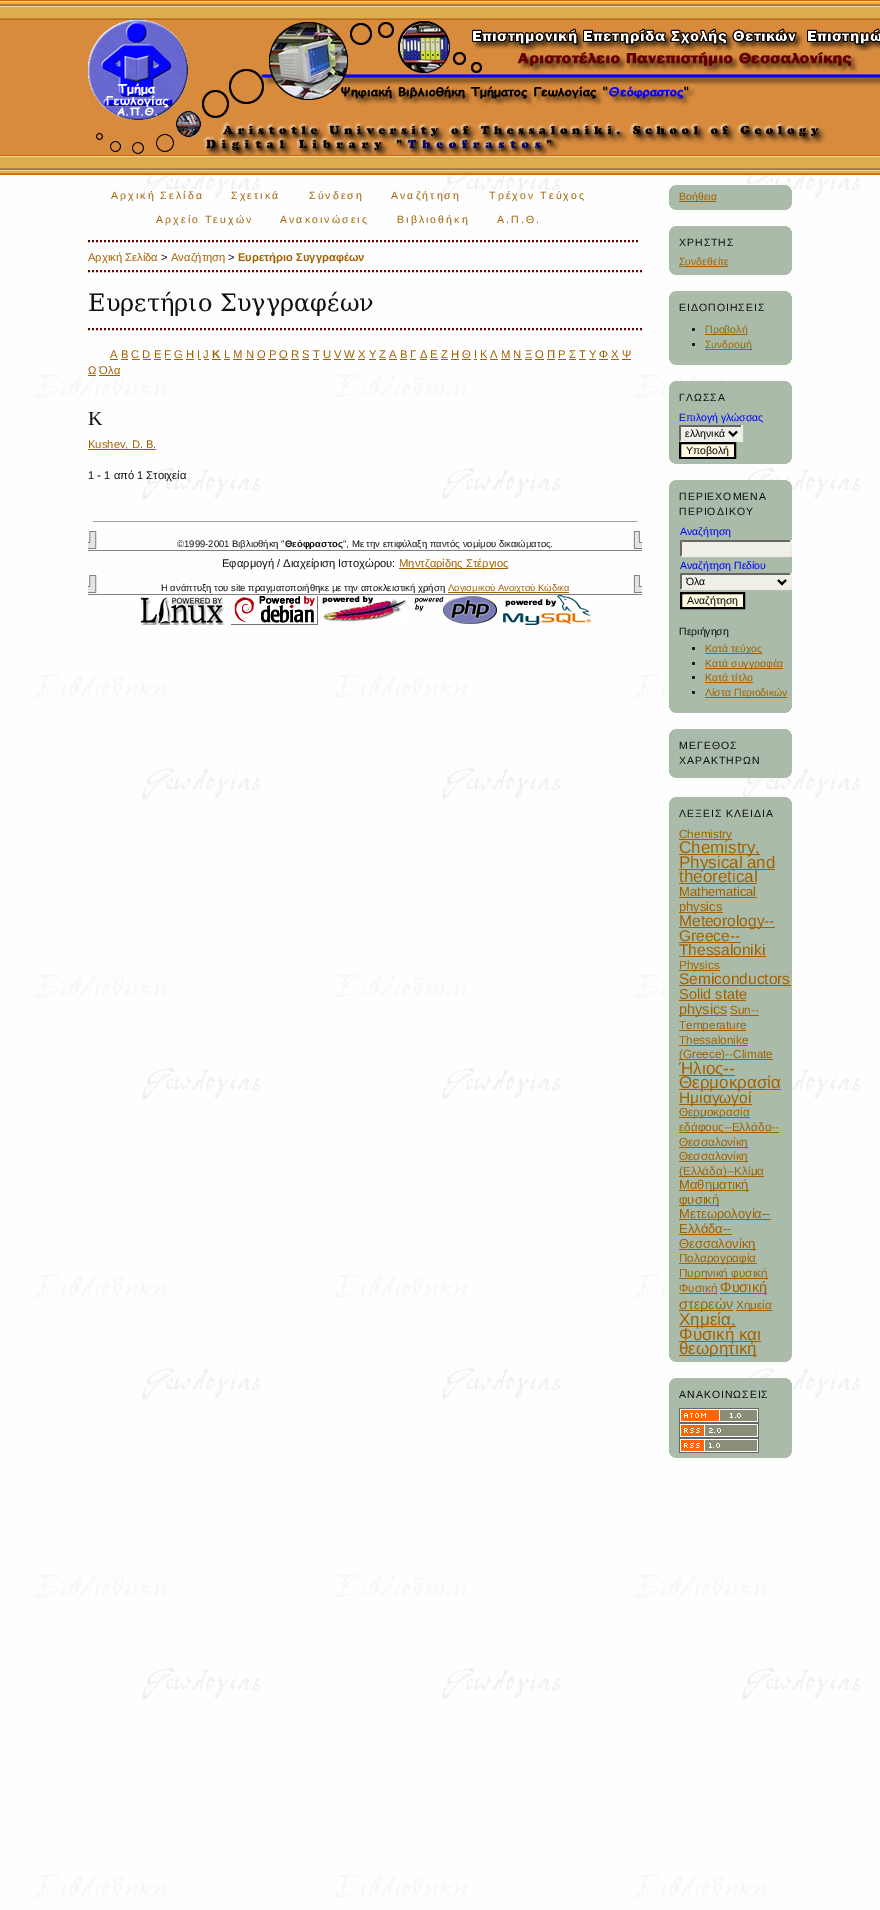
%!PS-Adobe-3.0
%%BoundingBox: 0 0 880 1910
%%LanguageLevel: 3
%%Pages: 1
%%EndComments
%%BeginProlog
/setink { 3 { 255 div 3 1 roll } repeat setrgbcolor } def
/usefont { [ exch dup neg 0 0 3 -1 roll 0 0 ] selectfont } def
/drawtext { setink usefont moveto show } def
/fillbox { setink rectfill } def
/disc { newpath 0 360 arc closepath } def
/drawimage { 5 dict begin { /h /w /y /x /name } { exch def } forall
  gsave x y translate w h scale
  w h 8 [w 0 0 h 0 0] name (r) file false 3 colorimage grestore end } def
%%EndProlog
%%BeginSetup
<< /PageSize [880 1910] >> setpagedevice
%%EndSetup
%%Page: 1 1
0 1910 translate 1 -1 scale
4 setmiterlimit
0 0 880 1910 255 255 255 fillbox
(assets/img1.rgb) 0 175 880 1735 drawimage
(assets/img2.rgb) 0 0 880 175 drawimage
(assets/img3.rgb) 88 20 792 135 drawimage
105 0 0 setink
2 setlinewidth
[2 2] 0 setdash
88 241 moveto 640 241 lineto stroke
/LiberationSans-Regular 10.5 usefont
162 97 0 setink
111 199 moveto 2.1 0 (Αρχική Σελίδα) ashow
231 199 moveto 2.1 0 (Σχετικά) ashow
309 199 moveto 2.1 0 (Σύνδεση) ashow
391 199 moveto 2.1 0 (Αναζήτηση) ashow
489 199 moveto 2.1 0 (Τρέχον Τεύχος) ashow
156 223 moveto 2.1 0 (Αρχείο Τευχών) ashow
280 223 moveto 2.1 0 (Ανακοινώσεις) ashow
397 223 moveto 2.1 0 (Βιβλιοθήκη) ashow
497 223 moveto 2.1 0 (Α.Π.Θ.) ashow
105 0 0 setink
88 271 moveto 642 271 lineto stroke
(Αρχική Σελίδα) 88 261 /LiberationSans-Regular 11.2 162 97 0 drawtext
(>) 161 261 /LiberationSans-Regular 11.2 17 17 17 drawtext
(Αναζήτηση) 171 261 /LiberationSans-Regular 11.2 162 97 0 drawtext
(>) 228 261 /LiberationSans-Regular 11.2 17 17 17 drawtext
(Ευρετήριο Συγγραφέων) 238 261 /LiberationSans-Bold 11.2 162 97 0 drawtext
(Ευρετήριο Συγγραφέων) 88 311 /DejaVuSerif-Regular 24 17 17 17 drawtext
105 0 0 setink
88 329 moveto 642 329 lineto stroke
(A B C D E F G H I J) 110 358 /LiberationSans-Regular 11.2 162 97 0 drawtext
110 359 8 1 162 97 0 fillbox
(K) 212 358 /LiberationSans-Bold 11.2 162 97 0 drawtext
212 359 9 1 162 97 0 fillbox
(L M N O P) 224 358 /LiberationSans-Regular 11.2 162 97 0 drawtext
224 359 6 1 162 97 0 fillbox
279 359 9 1 162 97 0 fillbox
(Q R S T U V W X Y Z Α Β Γ Δ Ε Ζ Η Θ Ι Κ Λ Μ Ν Ξ Ο Π Ρ Σ Τ Υ Φ Χ Ψ) 279 358 /LiberationSans-Regular 11.2 162 97 0 drawtext
121 359 7 1 162 97 0 fillbox
132 359 8 1 162 97 0 fillbox
143 359 8 1 162 97 0 fillbox
154 359 7 1 162 97 0 fillbox
165 359 6 1 162 97 0 fillbox
174 359 9 1 162 97 0 fillbox
186 359 8 1 162 97 0 fillbox
198 359 3 1 162 97 0 fillbox
204 359 5 1 162 97 0 fillbox
233 359 9 1 162 97 0 fillbox
245 359 9 1 162 97 0 fillbox
257 359 8 1 162 97 0 fillbox
268 359 8 1 162 97 0 fillbox
291 359 8 1 162 97 0 fillbox
302 359 7 1 162 97 0 fillbox
313 359 6 1 162 97 0 fillbox
323 359 8 1 162 97 0 fillbox
334 359 7 1 162 97 0 fillbox
344 359 11 1 162 97 0 fillbox
358 359 7 1 162 97 0 fillbox
369 359 7 1 162 97 0 fillbox
379 359 7 1 162 97 0 fillbox
389 359 8 1 162 97 0 fillbox
400 359 7 1 162 97 0 fillbox
410 359 6 1 162 97 0 fillbox
420 359 7 1 162 97 0 fillbox
430 359 8 1 162 97 0 fillbox
441 359 7 1 162 97 0 fillbox
451 359 8 1 162 97 0 fillbox
462 359 9 1 162 97 0 fillbox
474 359 3 1 162 97 0 fillbox
480 359 7 1 162 97 0 fillbox
490 359 8 1 162 97 0 fillbox
501 359 9 1 162 97 0 fillbox
514 359 8 1 162 97 0 fillbox
525 359 7 1 162 97 0 fillbox
535 359 9 1 162 97 0 fillbox
547 359 8 1 162 97 0 fillbox
558 359 8 1 162 97 0 fillbox
569 359 7 1 162 97 0 fillbox
579 359 7 1 162 97 0 fillbox
589 359 7 1 162 97 0 fillbox
599 359 9 1 162 97 0 fillbox
611 359 8 1 162 97 0 fillbox
622 359 9 1 162 97 0 fillbox
(Ω Όλα) 88 374 /LiberationSans-Regular 11.2 162 97 0 drawtext
88 375 8 1 162 97 0 fillbox
99 375 21 1 162 97 0 fillbox
(K) 88 425 /LiberationSerif-Regular 20 17 17 17 drawtext
88 449 68 1 162 97 0 fillbox
(Kushev, D. B.) 88 448 /LiberationSans-Regular 11.2 162 97 0 drawtext
(1 - 1 από 1 Στοιχεία) 88 479 /LiberationSans-Regular 11.2 17 17 17 drawtext
93 521 545 1 159 159 159 fillbox
637 521 1 1 238 238 238 fillbox
(assets/img4.rgb) 88 531 554 20 drawimage
(©1999-2001 Βιβλιοθήκη ") 177 547 /LiberationSans-Regular 9.5 17 17 17 drawtext
(Θεόφραστος) 285 547 /LiberationSans-Bold 9.5 17 17 17 drawtext
(", Με την επιφύλαξη παντός νομίμου δικαιώματος.) 343 547 /LiberationSans-Regular 9.5 17 17 17 drawtext
(Εφαρμογή / Διαχείριση Ιστοχώρου:) 222 567 /LiberationSans-Regular 11.2 17 17 17 drawtext
399 568 109 1 162 97 0 fillbox
(Μηντζαρίδης Στέργιος) 399 567 /LiberationSans-Regular 11.2 162 97 0 drawtext
(assets/img4.rgb) 88 575 554 20 drawimage
(Η ανάπτυξη του site πραγματοποιήθηκε με την αποκλειστική χρήση) 161 591 /LiberationSans-Regular 9.5 17 17 17 drawtext
448 592 121 1 162 97 0 fillbox
(Λογισμικού Ανοιχτού Κώδικα) 448 591 /LiberationSans-Regular 9.5 162 97 0 drawtext
(assets/img5.rgb) 140 597 85 28 drawimage
(assets/img6.rgb) 231 596 87 29 drawimage
(assets/img7.rgb) 322 596 85 26 drawimage
(assets/img8.rgb) 414 596 83 28 drawimage
(assets/img9.rgb) 503 595 88 30 drawimage
669 190 123 15 170 187 170 fillbox
669 185 123 5 251 251 243 fillbox
674 185 113 1 170 187 170 fillbox
672 186 117 1 170 187 170 fillbox
671 187 119 1 170 187 170 fillbox
670 188 121 2 170 187 170 fillbox
679 201 37 1 162 97 0 fillbox
(Βοήθεια) 679 200 /LiberationSans-Regular 10.5 162 97 0 drawtext
669 205 123 5 251 251 243 fillbox
670 205 121 2 170 187 170 fillbox
671 207 119 1 170 187 170 fillbox
672 208 117 1 170 187 170 fillbox
674 209 113 1 170 187 170 fillbox
669 231 123 39 170 187 170 fillbox
669 226 123 5 251 251 243 fillbox
674 226 113 1 170 187 170 fillbox
672 227 117 1 170 187 170 fillbox
671 228 119 1 170 187 170 fillbox
670 229 121 2 170 187 170 fillbox
17 17 17 setink
679 246 moveto 1 0 (ΧΡΗΣΤΗΣ) ashow
(Συνδεθείτε) 679 265 /LiberationSans-Regular 10.5 162 97 0 drawtext
679 266 49 1 162 97 0 fillbox
669 270 123 5 251 251 243 fillbox
670 270 121 2 170 187 170 fillbox
671 272 119 1 170 187 170 fillbox
672 273 117 1 170 187 170 fillbox
674 274 113 1 170 187 170 fillbox
669 296 123 64 170 187 170 fillbox
669 291 123 5 251 251 243 fillbox
674 291 113 1 170 187 170 fillbox
672 292 117 1 170 187 170 fillbox
671 293 119 1 170 187 170 fillbox
670 294 121 2 170 187 170 fillbox
17 17 17 setink
679 311 moveto 1 0 (ΕΙΔΟΠΟΙΗΣΕΙΣ) ashow
693.5 329.5 1.5 disc fill
705 334 42 1 162 97 0 fillbox
(Προβολή) 705 333 /LiberationSans-Regular 10.5 162 97 0 drawtext
17 17 17 setink
693.5 344.5 1.5 disc fill
705 349 47 1 162 97 0 fillbox
(Συνδρομή) 705 348 /LiberationSans-Regular 10.5 162 97 0 drawtext
669 360 123 5 251 251 243 fillbox
670 360 121 2 170 187 170 fillbox
671 362 119 1 170 187 170 fillbox
672 363 117 1 170 187 170 fillbox
674 364 113 1 170 187 170 fillbox
669 386 123 73 170 187 170 fillbox
669 381 123 5 251 251 243 fillbox
674 381 113 1 170 187 170 fillbox
672 382 117 1 170 187 170 fillbox
671 383 119 1 170 187 170 fillbox
670 384 121 2 170 187 170 fillbox
17 17 17 setink
679 401 moveto 1 0 (ΓΛΩΣΣΑ) ashow
(Επιλογή γλώσσας) 679 421 /LiberationSans-Regular 10.5 0 0 255 drawtext
679 425 64 17 240 240 232 fillbox
102 102 102 setink
679 425 moveto 743 425 lineto 741 427 lineto 681 427 lineto closepath fill
232 232 225 setink
742 425 moveto 742 442 lineto stroke
679 441 moveto 743 441 lineto stroke
102 102 102 setink
679 442 moveto 679 425 lineto 681 427 lineto 681 440 lineto closepath fill
0 0 0 setink
[] 0 setdash
729 431.5 moveto 733 435.5 lineto 737 431.5 lineto stroke
(ελληνικά) 685 437 /LiberationSans-Regular 10.5 0 0 0 drawtext
255 249 224 setink
680 443 moveto 735 443 lineto 735 458 lineto 680 458 lineto closepath gsave fill grestore
0 0 0 setink
stroke
(Υποβολή) 686 454 /LiberationSans-Regular 10.5 0 0 0 drawtext
669 459 123 5 251 251 243 fillbox
670 459 121 2 170 187 170 fillbox
671 461 119 1 170 187 170 fillbox
672 462 117 1 170 187 170 fillbox
674 463 113 1 170 187 170 fillbox
669 485 123 223 170 187 170 fillbox
669 480 123 5 251 251 243 fillbox
674 480 113 1 170 187 170 fillbox
672 481 117 1 170 187 170 fillbox
671 482 119 1 170 187 170 fillbox
670 483 121 2 170 187 170 fillbox
17 17 17 setink
679 500 moveto 1 0 (ΠΕΡΙΕΧΟΜΕΝΑ) ashow
679 515 moveto 1 0 (ΠΕΡΙΟΔΙΚΟΥ) ashow
(Αναζήτηση) 680 535 /LiberationSans-Regular 10.5 0 0 255 drawtext
680 540 112 17 240 240 232 fillbox
102 102 102 setink
680 540 moveto 792 540 lineto 790 542 lineto 682 542 lineto closepath fill
232 232 225 setink
[2 2] 0 setdash
791 540 moveto 791 557 lineto stroke
680 556 moveto 792 556 lineto stroke
102 102 102 setink
680 557 moveto 680 540 lineto 682 542 lineto 682 555 lineto closepath fill
(Αναζήτηση Πεδίου) 680 569 /LiberationSans-Regular 10.5 0 0 255 drawtext
680 573 112 17 240 240 232 fillbox
102 102 102 setink
680 573 moveto 792 573 lineto 790 575 lineto 682 575 lineto closepath fill
232 232 225 setink
791 573 moveto 791 590 lineto stroke
680 589 moveto 792 589 lineto stroke
102 102 102 setink
680 590 moveto 680 573 lineto 682 575 lineto 682 588 lineto closepath fill
0 0 0 setink
[] 0 setdash
778 580 moveto 782 584 lineto 786 580 lineto stroke
(Όλα) 686 585 /LiberationSans-Regular 10.5 0 0 0 drawtext
255 249 224 setink
681 593 moveto 744 593 lineto 744 608 lineto 681 608 lineto closepath gsave fill grestore
0 0 0 setink
stroke
(Αναζήτηση) 687 604 /LiberationSans-Regular 10.5 0 0 0 drawtext
(Περιήγηση) 679 635 /LiberationSans-Regular 10.5 17 17 17 drawtext
693.5 648.5 1.5 disc fill
705 653 57 1 162 97 0 fillbox
(Κατά τεύχος) 705 652 /LiberationSans-Regular 10.5 162 97 0 drawtext
17 17 17 setink
693.5 663.5 1.5 disc fill
705 668 78 1 162 97 0 fillbox
(Κατά συγγραφέα) 705 667 /LiberationSans-Regular 10.5 162 97 0 drawtext
17 17 17 setink
693.5 677.5 1.5 disc fill
(Κατά τίτλο) 705 681 /LiberationSans-Regular 10.5 162 97 0 drawtext
705 682 48 1 162 97 0 fillbox
17 17 17 setink
693.5 692.5 1.5 disc fill
705 697 82 1 162 97 0 fillbox
(Λίστα Περιοδικών) 705 696 /LiberationSans-Regular 10.5 162 97 0 drawtext
669 708 123 5 251 251 243 fillbox
670 708 121 2 170 187 170 fillbox
671 710 119 1 170 187 170 fillbox
672 711 117 1 170 187 170 fillbox
674 712 113 1 170 187 170 fillbox
669 734 123 39 170 187 170 fillbox
669 729 123 5 251 251 243 fillbox
674 729 113 1 170 187 170 fillbox
672 730 117 1 170 187 170 fillbox
671 731 119 1 170 187 170 fillbox
670 732 121 2 170 187 170 fillbox
17 17 17 setink
679 749 moveto 1 0 (ΜΕΓΕΘΟΣ) ashow
679 764 moveto 1 0 (ΧΑΡΑΚΤΗΡΩΝ) ashow
669 773 123 5 251 251 243 fillbox
670 773 121 2 170 187 170 fillbox
671 775 119 1 170 187 170 fillbox
672 776 117 1 170 187 170 fillbox
674 777 113 1 170 187 170 fillbox
669 802 123 555 170 187 170 fillbox
669 797 123 5 251 251 243 fillbox
674 797 113 1 170 187 170 fillbox
672 798 117 1 170 187 170 fillbox
671 799 119 1 170 187 170 fillbox
670 800 121 2 170 187 170 fillbox
17 17 17 setink
679 817 moveto 1 0 (ΛΕΞΕΙΣ ΚΛΕΙΔΙΑ) ashow
679 839 53 1 162 97 0 fillbox
(Chemistry) 679 838 /LiberationSans-Regular 11.75 162 97 0 drawtext
679 854 81 1 162 97 0 fillbox
(Chemistry,) 679 853 /LiberationSans-Regular 17 162 97 0 drawtext
679 869 96 1 162 97 0 fillbox
(Physical and) 679 868 /LiberationSans-Regular 17 162 97 0 drawtext
(theoretical) 679 882 /LiberationSans-Regular 17 162 97 0 drawtext
679 883 78 1 162 97 0 fillbox
(Mathematical) 679 896 /LiberationSans-Regular 13 162 97 0 drawtext
679 897 78 1 162 97 0 fillbox
679 912 44 1 162 97 0 fillbox
(physics) 679 911 /LiberationSans-Regular 13 162 97 0 drawtext
679 927 96 1 162 97 0 fillbox
(Meteorology--) 679 926 /LiberationSans-Regular 15.5 162 97 0 drawtext
(Greece--) 679 941 /LiberationSans-Regular 15.5 162 97 0 drawtext
679 942 62 1 162 97 0 fillbox
(Thessaloniki) 679 955 /LiberationSans-Regular 15.5 162 97 0 drawtext
679 956 87 1 162 97 0 fillbox
679 970 41 1 162 97 0 fillbox
(Physics) 679 969 /LiberationSans-Regular 11.75 162 97 0 drawtext
(Semiconductors) 679 984 /LiberationSans-Regular 15.5 162 97 0 drawtext
679 985 112 1 162 97 0 fillbox
(Solid state) 679 999 /LiberationSans-Regular 14.5 162 97 0 drawtext
679 1000 67 1 162 97 0 fillbox
679 1015 48 1 162 97 0 fillbox
(physics) 679 1014 /LiberationSans-Regular 14.5 162 97 0 drawtext
(Sun--) 730 1014 /LiberationSans-Regular 11.75 162 97 0 drawtext
730 1015 29 1 162 97 0 fillbox
679 1030 67 1 162 97 0 fillbox
(Temperature) 679 1029 /LiberationSans-Regular 11.75 162 97 0 drawtext
(Thessalonike) 679 1044 /LiberationSans-Regular 11.75 162 97 0 drawtext
679 1045 69 1 162 97 0 fillbox
679 1059 94 1 162 97 0 fillbox
(\(Greece\)--Climate) 679 1058 /LiberationSans-Regular 11.75 162 97 0 drawtext
679 1075 56 1 162 97 0 fillbox
(Ήλιος--) 679 1074 /LiberationSans-Regular 17 162 97 0 drawtext
679 1089 102 1 162 97 0 fillbox
(Θερμοκρασία) 679 1088 /LiberationSans-Regular 17 162 97 0 drawtext
679 1104 73 1 162 97 0 fillbox
(Ημιαγωγοί) 679 1103 /LiberationSans-Regular 15.5 162 97 0 drawtext
679 1117 71 1 162 97 0 fillbox
(Θερμοκρασία) 679 1116 /LiberationSans-Regular 11.75 162 97 0 drawtext
679 1132 100 1 162 97 0 fillbox
(εδάφους--Ελλάδα--) 679 1131 /LiberationSans-Regular 11.75 162 97 0 drawtext
679 1147 69 1 162 97 0 fillbox
(Θεσσαλονίκη) 679 1146 /LiberationSans-Regular 11.75 162 97 0 drawtext
679 1161 69 1 162 97 0 fillbox
(Θεσσαλονίκη) 679 1160 /LiberationSans-Regular 11.75 162 97 0 drawtext
679 1176 85 1 162 97 0 fillbox
(\(Ελλάδα\)--Κλίμα) 679 1175 /LiberationSans-Regular 11.75 162 97 0 drawtext
679 1190 70 1 162 97 0 fillbox
(Μαθηματική) 679 1189 /LiberationSans-Regular 13 162 97 0 drawtext
679 1205 40 1 162 97 0 fillbox
(φυσική) 679 1204 /LiberationSans-Regular 13 162 97 0 drawtext
679 1219 92 1 162 97 0 fillbox
(Μετεωρολογία--) 679 1218 /LiberationSans-Regular 13 162 97 0 drawtext
(Ελλάδα--) 679 1233 /LiberationSans-Regular 13 162 97 0 drawtext
679 1234 53 1 162 97 0 fillbox
679 1249 77 1 162 97 0 fillbox
(Θεσσαλονίκη) 679 1248 /LiberationSans-Regular 13 162 97 0 drawtext
679 1263 78 1 162 97 0 fillbox
(Πολαρογραφία) 679 1262 /LiberationSans-Regular 11.75 162 97 0 drawtext
679 1278 89 1 162 97 0 fillbox
(Πυρηνική φυσική) 679 1277 /LiberationSans-Regular 11.75 162 97 0 drawtext
679 1293 38 1 162 97 0 fillbox
(Φυσική) 679 1292 /LiberationSans-Regular 11.75 162 97 0 drawtext
720 1293 47 1 162 97 0 fillbox
(Φυσική) 720 1292 /LiberationSans-Regular 14.5 162 97 0 drawtext
679 1310 54 1 162 97 0 fillbox
(στερεών) 679 1309 /LiberationSans-Regular 14.5 162 97 0 drawtext
736 1310 36 1 162 97 0 fillbox
(Χημεία) 736 1309 /LiberationSans-Regular 11.75 162 97 0 drawtext
679 1326 57 1 162 97 0 fillbox
(Χημεία,) 679 1325 /LiberationSans-Regular 17 162 97 0 drawtext
679 1341 82 1 162 97 0 fillbox
(Φυσική και) 679 1340 /LiberationSans-Regular 17 162 97 0 drawtext
679 1355 78 1 162 97 0 fillbox
669 1357 123 5 251 251 243 fillbox
(θεωρητική) 679 1354 /LiberationSans-Regular 17 162 97 0 drawtext
670 1357 121 2 170 187 170 fillbox
671 1359 119 1 170 187 170 fillbox
672 1360 117 1 170 187 170 fillbox
674 1361 113 1 170 187 170 fillbox
669 1383 123 70 170 187 170 fillbox
669 1378 123 5 251 251 243 fillbox
674 1378 113 1 170 187 170 fillbox
672 1379 117 1 170 187 170 fillbox
671 1380 119 1 170 187 170 fillbox
670 1381 121 2 170 187 170 fillbox
/LiberationSans-Regular 10.5 usefont
17 17 17 setink
679 1398 moveto 1 0 (ΑΝΑΚΟΙΝΩΣΕΙΣ) ashow
(assets/img10.rgb) 679 1408 80 15 drawimage
(assets/img11.rgb) 679 1423 80 15 drawimage
(assets/img12.rgb) 679 1438 80 15 drawimage
669 1453 123 5 251 251 243 fillbox
670 1453 121 2 170 187 170 fillbox
671 1455 119 1 170 187 170 fillbox
672 1456 117 1 170 187 170 fillbox
674 1457 113 1 170 187 170 fillbox
showpage
%%EOF
